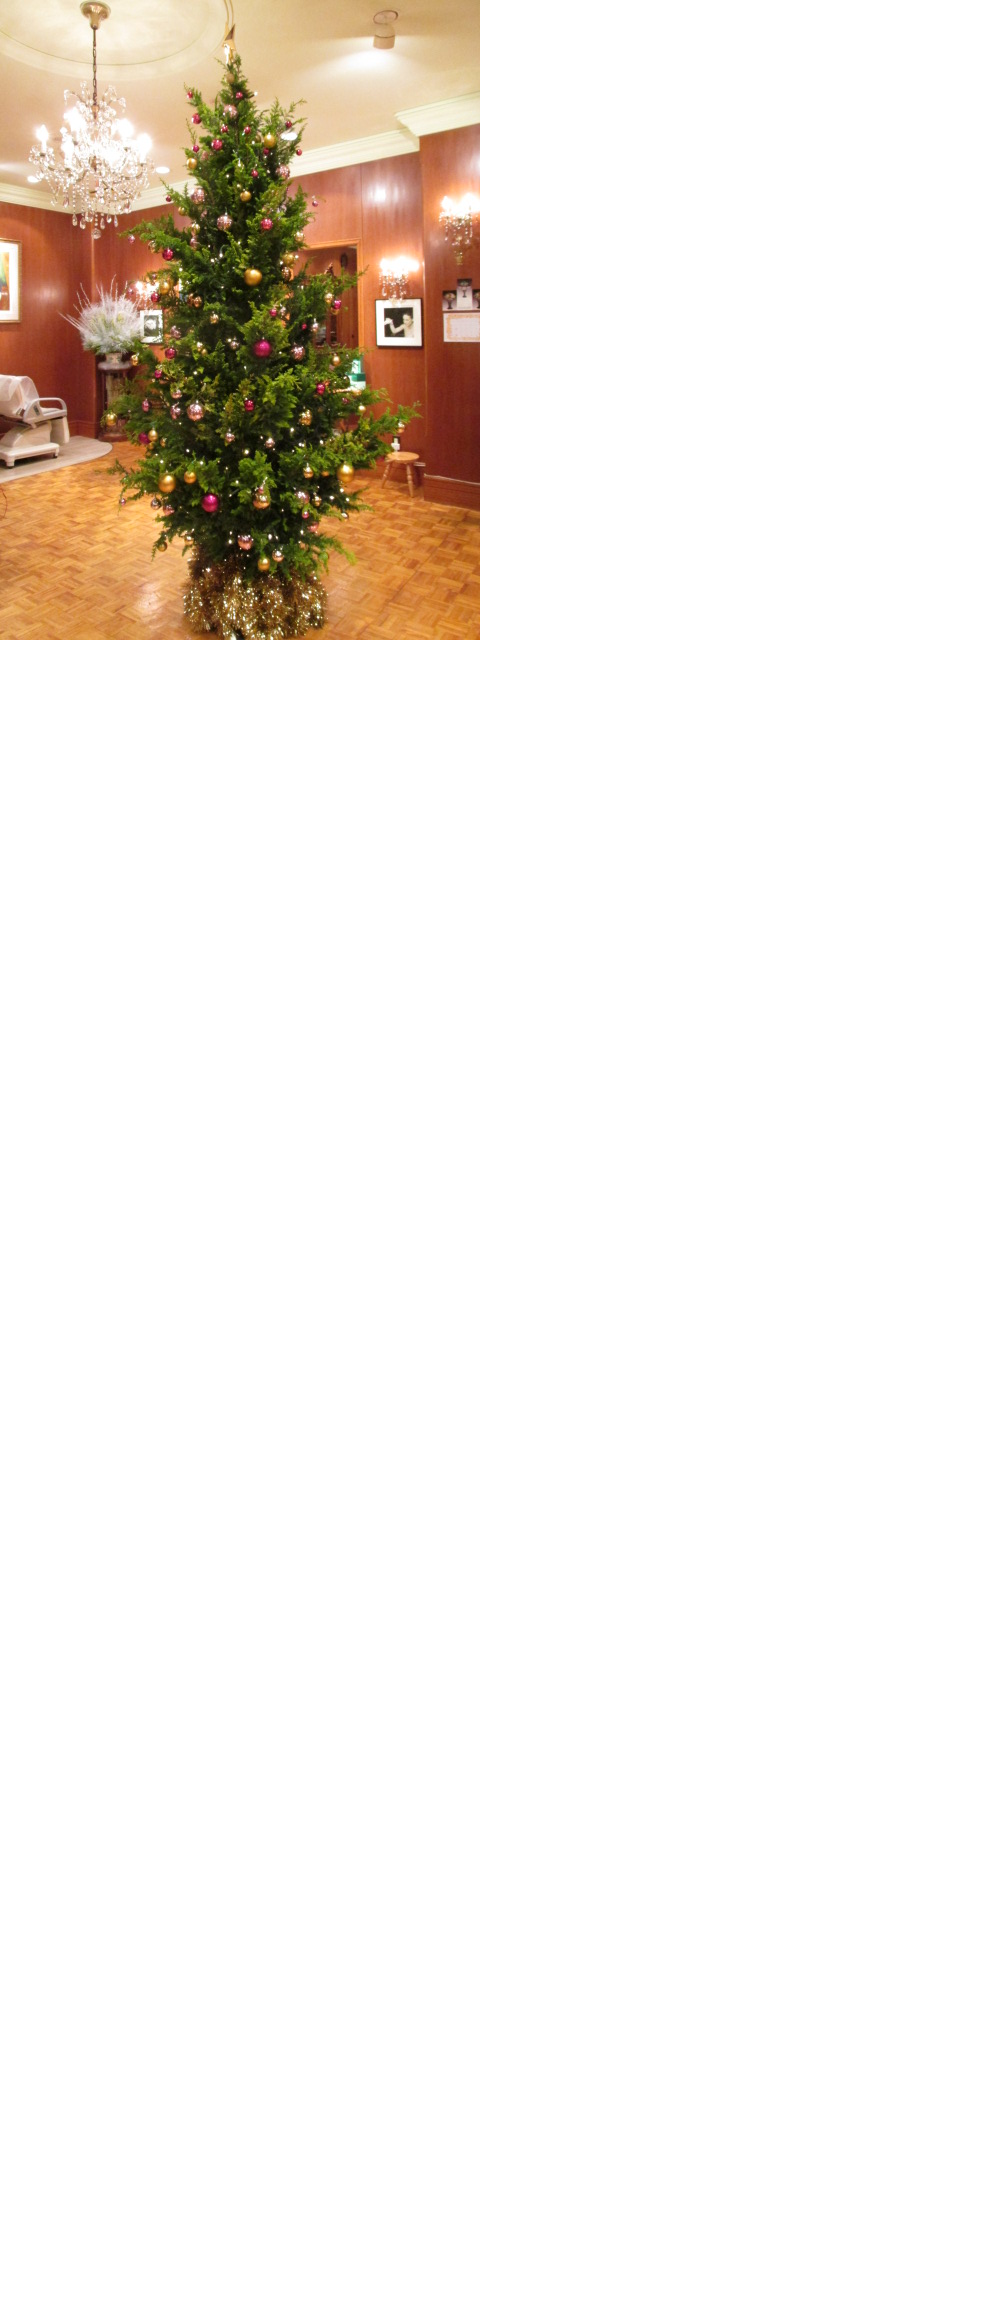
%!PS-Adobe-3.0
%%BoundingBox: 0 0 983 2324
%%LanguageLevel: 3
%%Pages: 1
%%EndComments
%%BeginProlog
/setink { 3 { 255 div 3 1 roll } repeat setrgbcolor } def
/fillbox { setink rectfill } def
/drawimage { 5 dict begin { /h /w /y /x /name } { exch def } forall
  gsave x y translate w h scale
  w h 8 [w 0 0 h 0 0] name (r) file false 3 colorimage grestore end } def
%%EndProlog
%%BeginSetup
<< /PageSize [983 2324] >> setpagedevice
%%EndSetup
%%Page: 1 1
0 2324 translate 1 -1 scale
4 setmiterlimit
0 0 983 2324 255 255 255 fillbox
(assets/img1.rgb) 0 0 480 640 drawimage
showpage
%%EOF
